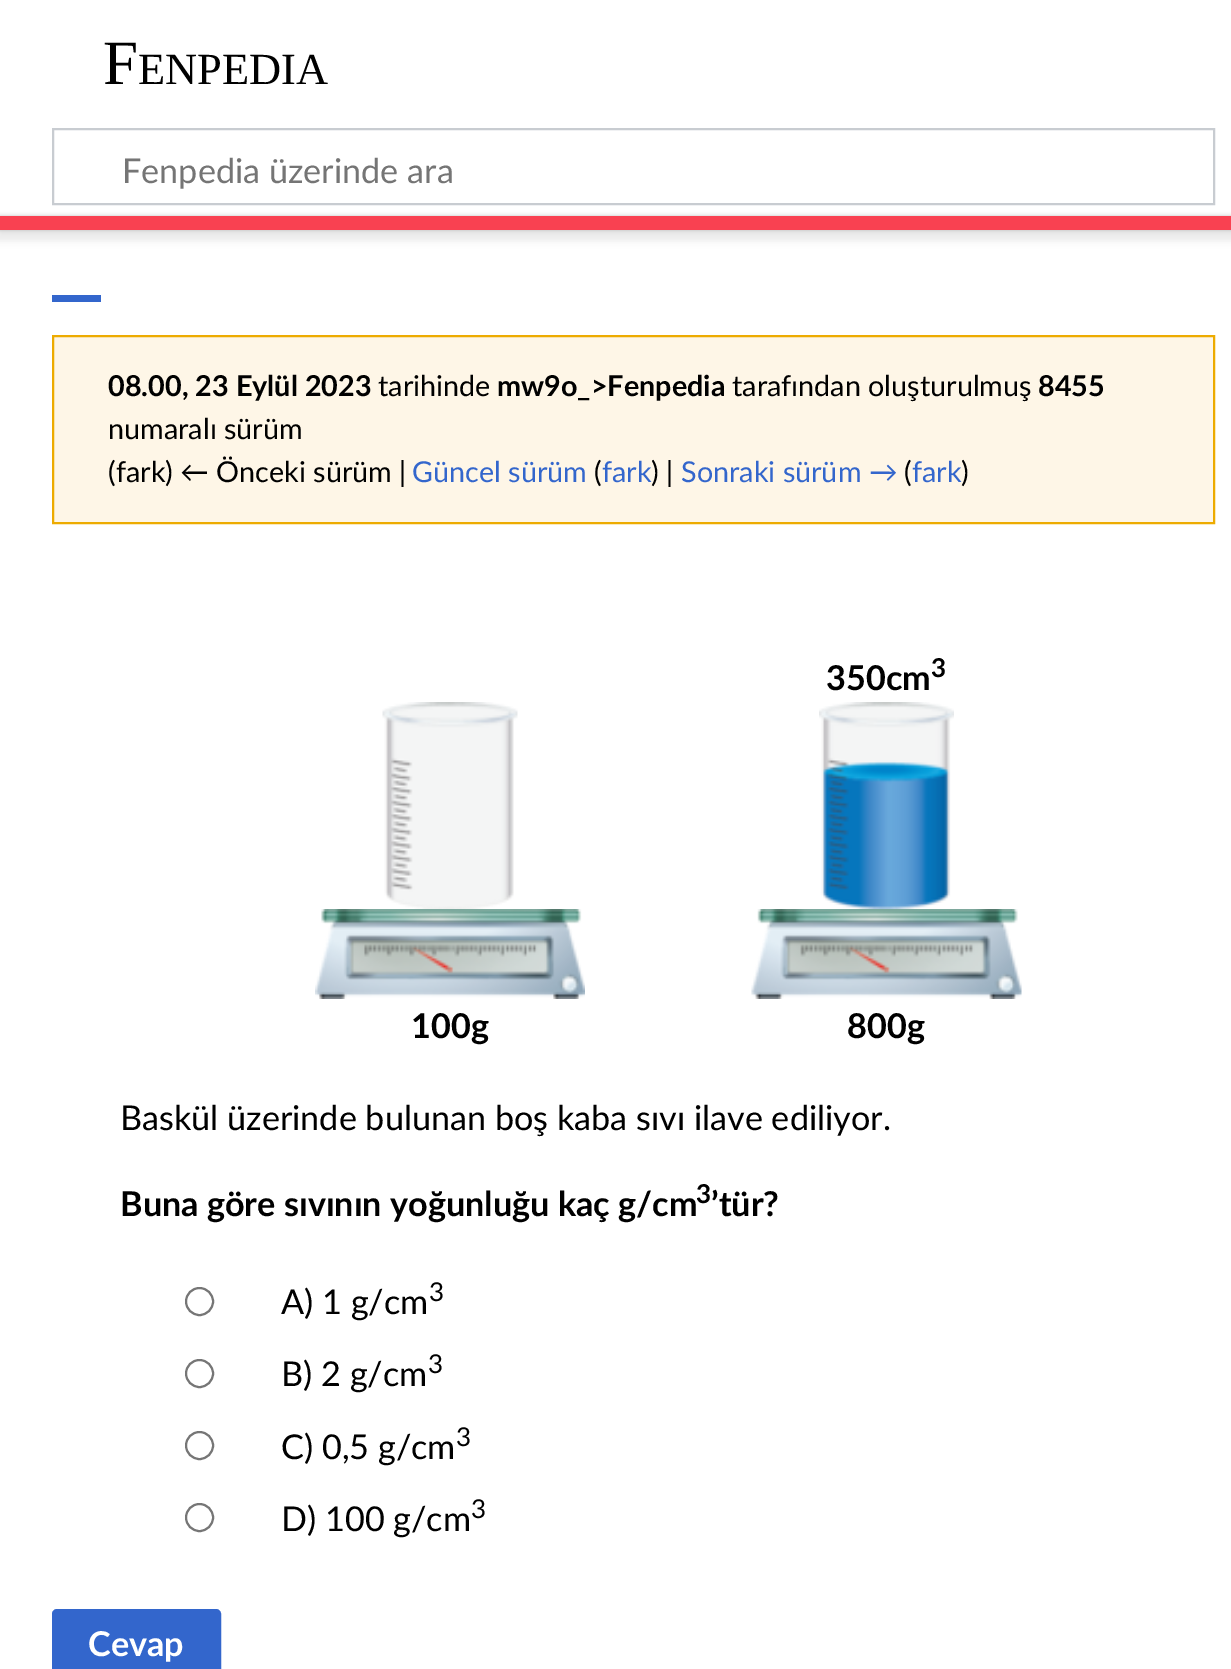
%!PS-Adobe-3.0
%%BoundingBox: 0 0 1231 1669
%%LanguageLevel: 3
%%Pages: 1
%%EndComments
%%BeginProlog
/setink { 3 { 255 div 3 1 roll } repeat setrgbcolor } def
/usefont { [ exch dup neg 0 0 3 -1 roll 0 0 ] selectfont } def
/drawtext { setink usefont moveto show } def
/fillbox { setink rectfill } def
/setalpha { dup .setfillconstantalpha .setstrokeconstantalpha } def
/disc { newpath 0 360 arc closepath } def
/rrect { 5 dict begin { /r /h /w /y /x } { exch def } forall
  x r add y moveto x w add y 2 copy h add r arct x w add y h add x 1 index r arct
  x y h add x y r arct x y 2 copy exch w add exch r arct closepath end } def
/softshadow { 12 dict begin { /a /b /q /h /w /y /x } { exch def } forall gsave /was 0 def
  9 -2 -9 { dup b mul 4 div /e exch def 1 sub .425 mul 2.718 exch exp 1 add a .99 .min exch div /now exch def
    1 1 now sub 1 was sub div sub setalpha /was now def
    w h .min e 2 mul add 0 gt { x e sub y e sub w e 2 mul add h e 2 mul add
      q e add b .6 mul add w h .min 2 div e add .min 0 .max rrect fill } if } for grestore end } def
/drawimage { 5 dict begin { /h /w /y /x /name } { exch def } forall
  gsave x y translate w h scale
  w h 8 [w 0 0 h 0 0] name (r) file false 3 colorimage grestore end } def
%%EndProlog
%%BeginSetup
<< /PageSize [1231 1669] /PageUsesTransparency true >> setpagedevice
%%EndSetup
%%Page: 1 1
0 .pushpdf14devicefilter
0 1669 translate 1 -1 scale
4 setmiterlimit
0 0 1231 1669 255 255 255 fillbox
(F) 103 84 /LiberationSerif-Regular 63 0 0 0 drawtext
(ENPEDIA) 138 84 /LiberationSerif-Regular 44.5 0 0 0 drawtext
200 204 209 setink
2 setlinewidth
53 129 1161 75 rectstroke
(Fenpedia üzerinde ara) 122 183 /Lato-Regular 34.2 117 117 117 drawtext
0 0 0 setink
0 216 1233 14 0 2 0.2 softshadow
-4 218 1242 23 0 3.5 0.07 softshadow
0 216 1231 14 249 65 81 fillbox
52 295 49 7 51 102 204 fillbox
254 246 231 setink
53 336 moveto 1214 336 lineto 1214 523 lineto 53 523 lineto closepath gsave fill grestore
237 171 0 setink
stroke
(08.00, 23 Eylül 2023) 108 396 /Lato-Bold 28.75 0 0 0 drawtext
(tarihinde) 378 396 /Lato-Regular 28.75 0 0 0 drawtext
(mw9o_>Fenpedia) 497 396 /Lato-Bold 28.75 0 0 0 drawtext
(tarafından oluşturulmuş) 732 396 /Lato-Regular 28.75 0 0 0 drawtext
(8455) 1038 396 /Lato-Bold 28.75 0 0 0 drawtext
(numaralı sürüm) 108 439 /Lato-Regular 28.75 0 0 0 drawtext
(\(fark\) ← Önceki sürüm |) 108 482 /Lato-Regular 28.75 0 0 0 drawtext
(Güncel sürüm) 412 482 /Lato-Regular 28.75 51 102 204 drawtext
(\() 594 482 /Lato-Regular 28.75 0 0 0 drawtext
(fark) 602 482 /Lato-Regular 28.75 51 102 204 drawtext
(\) |) 651 482 /Lato-Regular 28.75 0 0 0 drawtext
(Sonraki sürüm →) 681 482 /Lato-Regular 28.75 51 102 204 drawtext
(\() 904 482 /Lato-Regular 28.75 0 0 0 drawtext
(fark) 912 482 /Lato-Regular 28.75 51 102 204 drawtext
(\)) 961 482 /Lato-Regular 28.75 0 0 0 drawtext
(assets/img1.rgb) 382 702 136 207 drawimage
(assets/img2.rgb) 315 909 270 90 drawimage
(100g) 411 1038 /Lato-Bold 34.2 0 0 0 drawtext
(350cm) 826 690 /Lato-Bold 34.2 0 0 0 drawtext
(3) 931 677 /Lato-Bold 26 0 0 0 drawtext
(assets/img3.rgb) 819 702 135 207 drawimage
(assets/img4.rgb) 751 909 271 90 drawimage
(800g) 847 1038 /Lato-Bold 34.2 0 0 0 drawtext
(Baskül üzerinde bulunan boş kaba sıvı ilave ediliyor.) 120 1130 /Lato-Regular 34.2 0 0 0 drawtext
(Buna göre sıvının yoğunluğu kaç g/cm) 120 1216 /Lato-Bold 34.2 0 0 0 drawtext
(3) 696 1203 /Lato-Bold 26 0 0 0 drawtext
(’tür?) 711 1216 /Lato-Bold 34.2 0 0 0 drawtext
118 118 118 setink
199.5 1301.5 13.5 disc stroke
(A\) 1 g/cm) 281 1314 /Lato-Regular 34.2 0 0 0 drawtext
(3) 429 1301 /Lato-Regular 26 0 0 0 drawtext
118 118 118 setink
199.5 1373.5 13.5 disc stroke
(B\) 2 g/cm) 281 1386 /Lato-Regular 34.2 0 0 0 drawtext
(3) 428 1373 /Lato-Regular 26 0 0 0 drawtext
118 118 118 setink
199.5 1445.5 13.5 disc stroke
(C\) 0,5 g/cm) 281 1459 /Lato-Regular 34.2 0 0 0 drawtext
(3) 456 1446 /Lato-Regular 26 0 0 0 drawtext
118 118 118 setink
199.5 1517.5 13.5 disc stroke
(D\) 100 g/cm) 281 1531 /Lato-Regular 34.2 0 0 0 drawtext
(3) 471 1518 /Lato-Regular 26 0 0 0 drawtext
51 102 204 setink
53 1610 167 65 4 rrect gsave fill grestore
stroke
(Cevap) 88 1656 /Lato-Bold 34.2 255 255 255 drawtext
.poppdf14devicefilter showpage
%%EOF
